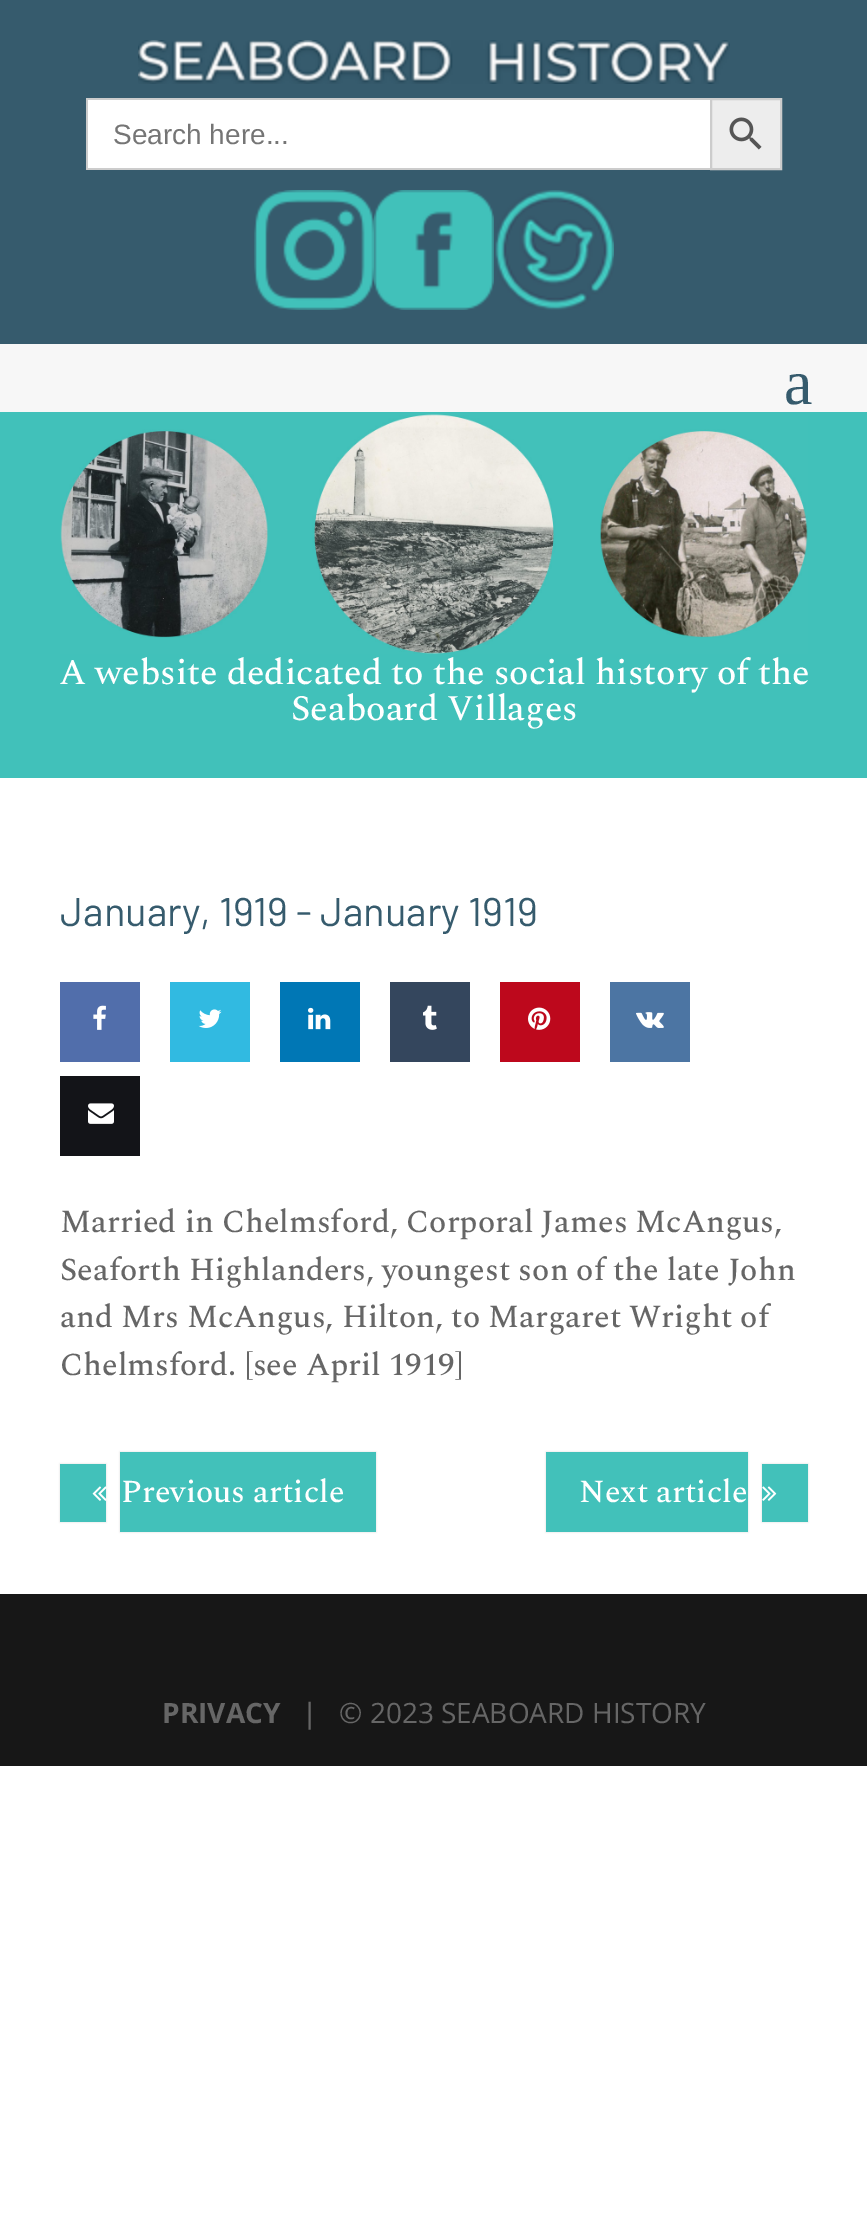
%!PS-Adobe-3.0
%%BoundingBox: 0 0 867 2218
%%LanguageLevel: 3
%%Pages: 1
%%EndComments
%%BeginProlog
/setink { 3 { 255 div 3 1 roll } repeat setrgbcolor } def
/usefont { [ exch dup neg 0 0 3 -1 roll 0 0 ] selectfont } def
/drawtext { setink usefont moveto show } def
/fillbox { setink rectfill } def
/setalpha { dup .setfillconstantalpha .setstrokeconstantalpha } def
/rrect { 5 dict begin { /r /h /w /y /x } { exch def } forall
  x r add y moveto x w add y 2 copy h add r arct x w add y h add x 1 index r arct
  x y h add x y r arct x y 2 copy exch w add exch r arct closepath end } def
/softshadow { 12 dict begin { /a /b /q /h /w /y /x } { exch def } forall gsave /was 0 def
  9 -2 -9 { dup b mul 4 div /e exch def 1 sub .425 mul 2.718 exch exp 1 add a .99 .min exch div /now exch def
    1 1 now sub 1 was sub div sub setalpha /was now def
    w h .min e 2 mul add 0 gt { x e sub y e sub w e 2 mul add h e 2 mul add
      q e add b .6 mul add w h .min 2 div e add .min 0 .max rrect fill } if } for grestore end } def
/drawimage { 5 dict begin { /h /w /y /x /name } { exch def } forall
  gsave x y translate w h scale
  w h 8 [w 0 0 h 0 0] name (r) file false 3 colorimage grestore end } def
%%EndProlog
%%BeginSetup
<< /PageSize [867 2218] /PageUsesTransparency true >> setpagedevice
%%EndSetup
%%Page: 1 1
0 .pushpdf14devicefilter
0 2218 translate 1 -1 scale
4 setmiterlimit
0 0 867 2218 255 255 255 fillbox
0 0 867 344 54 91 109 fillbox
(assets/img1.rgb) 138 40 592 44 drawimage
88 100 622 68 255 255 255 fillbox
86 98 624 2 204 204 204 fillbox
86 168 624 2 204 204 204 fillbox
86 98 2 72 204 204 204 fillbox
(Search here...) 113 144 /LiberationSans-Regular 28 117 117 117 drawtext
237 237 237 setink
711 99 moveto 781 99 lineto 781 169 lineto 711 169 lineto closepath gsave fill grestore
204 204 204 setink
2 setlinewidth
stroke
(assets/img2.rgb) 729 117 33 33 drawimage
(assets/img3.rgb) 254 190 120 120 drawimage
(assets/img4.rgb) 374 190 120 120 drawimage
(assets/img5.rgb) 495 190 119 120 drawimage
0 344 867 68 247 247 247 fillbox
(a) 784 404 /LiberationSerif-Regular 64 54 91 109 drawtext
0 412 867 366 65 193 186 fillbox
(assets/img6.rgb) 60 414 748 240 drawimage
(A website dedicated to the social history of the) 59 684 /Spectral-Medium 36 255 255 255 drawtext
(Seaboard Villages) 291 720 /Spectral-Medium 36 255 255 255 drawtext
(January, 1919 - January 1919) 60 926 /Barlow-Regular 40 54 91 109 drawtext
60 982 80 80 81 110 171 fillbox
(assets/img7.rgb) 93 1005 13 25 drawimage
170 982 80 80 49 186 225 fillbox
(assets/img8.rgb) 198 1009 24 19 drawimage
280 982 80 80 0 119 181 fillbox
(assets/img9.rgb) 308 1007 23 23 drawimage
390 982 80 80 52 70 93 fillbox
(assets/img10.rgb) 423 1005 14 25 drawimage
500 982 80 80 189 8 28 fillbox
(assets/img11.rgb) 528 1007 23 23 drawimage
610 982 80 80 76 117 163 fillbox
(assets/img12.rgb) 636 1012 28 16 drawimage
60 1076 80 80 19 20 24 fillbox
(assets/img13.rgb) 88 1103 26 21 drawimage
(Married in Chelmsford, Corporal James McAngus,) 60 1232 /Spectral-Medium 32 102 102 102 drawtext
(Seaforth Highlanders, youngest son of the late John) 60 1280 /Spectral-Medium 32 102 102 102 drawtext
(and Mrs McAngus, Hilton, to Margaret Wright of) 60 1327 /Spectral-Medium 32 102 102 102 drawtext
(Chelmsford. [see April 1919]) 60 1375 /Spectral-Medium 32 102 102 102 drawtext
0 0 0 setink
60 1464 46 58 0 1 0.15 softshadow
60 1464 46 58 66 193 186 fillbox
(assets/img14.rgb) 92 1486 15 15 drawimage
0 0 0 setink
120 1452 256 80 0 1 0.15 softshadow
120 1452 256 80 66 193 186 fillbox
(Previous article) 121 1502 /Spectral-Medium 32 255 255 255 drawtext
0 0 0 setink
546 1452 202 80 0 1 0.15 softshadow
546 1452 202 80 66 193 186 fillbox
(Next article) 579 1502 /Spectral-Medium 32 255 255 255 drawtext
0 0 0 setink
762 1464 46 58 0 1 0.15 softshadow
762 1464 46 58 66 193 186 fillbox
(assets/img15.rgb) 762 1486 15 15 drawimage
0 1594 867 172 23 23 23 fillbox
(PRIVACY) 162 1723 /OpenSans-Bold 28 102 102 102 drawtext
(|) 302 1723 /OpenSans-Medium 28 102 102 102 drawtext
(© 2023 SEABOARD HISTORY) 339 1723 /OpenSans-Regular 28 102 102 102 drawtext
.poppdf14devicefilter showpage
%%EOF
